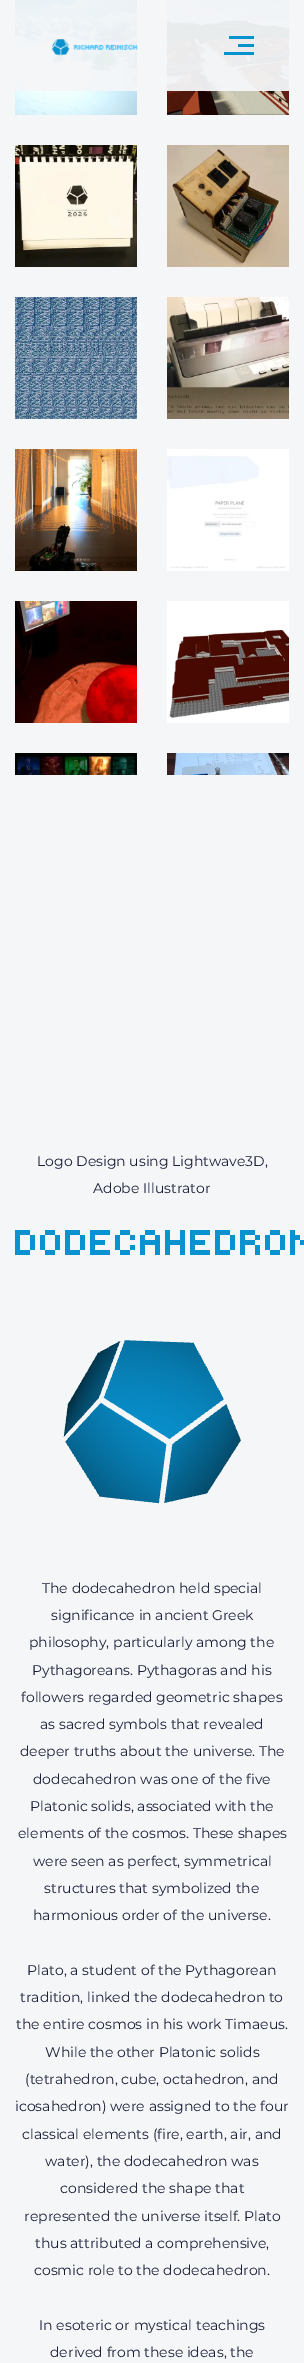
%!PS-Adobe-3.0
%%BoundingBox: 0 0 304 2363
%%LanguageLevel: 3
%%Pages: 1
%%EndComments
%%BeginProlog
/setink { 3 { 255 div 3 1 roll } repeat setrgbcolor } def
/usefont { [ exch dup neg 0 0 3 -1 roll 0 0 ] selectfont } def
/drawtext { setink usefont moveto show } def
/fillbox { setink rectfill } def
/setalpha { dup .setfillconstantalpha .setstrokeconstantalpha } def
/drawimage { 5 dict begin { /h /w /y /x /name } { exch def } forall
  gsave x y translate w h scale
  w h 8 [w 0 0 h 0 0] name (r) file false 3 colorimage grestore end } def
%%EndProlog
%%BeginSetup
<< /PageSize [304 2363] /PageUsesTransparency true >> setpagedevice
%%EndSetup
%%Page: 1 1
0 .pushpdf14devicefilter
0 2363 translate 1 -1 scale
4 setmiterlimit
0 0 304 2363 244 246 248 fillbox
(assets/img1.rgb) 15 0 122 115 drawimage
(assets/img2.rgb) 167 0 122 115 drawimage
(assets/img3.rgb) 15 145 122 122 drawimage
(assets/img4.rgb) 167 145 122 122 drawimage
(assets/img5.rgb) 15 297 122 122 drawimage
(assets/img6.rgb) 167 297 122 122 drawimage
(assets/img7.rgb) 15 449 122 122 drawimage
(assets/img8.rgb) 167 449 122 122 drawimage
(assets/img9.rgb) 15 601 122 122 drawimage
(assets/img10.rgb) 167 601 122 122 drawimage
(assets/img11.rgb) 15 753 122 22 drawimage
(assets/img12.rgb) 167 753 122 22 drawimage
0.95 setalpha
15 0 274 91 244 246 248 fillbox
1 setalpha
(assets/img13.rgb) 51 39 87 17 drawimage
229 36 25 3 8 146 208 fillbox
238 44 16 3 8 146 208 fillbox
224 52 30 3 8 146 208 fillbox
(Logo Design using Lightwave3D,) 37 1166 /Montserrat-Regular 14 26 31 54 drawtext
(Adobe Illustrator) 93 1193 /Montserrat-Regular 14 26 31 54 drawtext
(DODECAHEDRON) 15 1255 /Tiny5-Regular 40 8 146 208 drawtext
(assets/img14.rgb) 63 1340 178 164 drawimage
(The dodecahedron held special) 42 1593 /Montserrat-Regular 14 26 31 54 drawtext
(significance in ancient Greek) 51 1620 /Montserrat-Regular 14 26 31 54 drawtext
(philosophy, particularly among the) 29 1647 /Montserrat-Regular 14 26 31 54 drawtext
(Pythagoreans. Pythagoras and his) 32 1675 /Montserrat-Regular 14 26 31 54 drawtext
(followers regarded geometric shapes) 21 1702 /Montserrat-Regular 14 26 31 54 drawtext
(as sacred symbols that revealed) 40 1729 /Montserrat-Regular 14 26 31 54 drawtext
(deeper truths about the universe. The) 20 1756 /Montserrat-Regular 14 26 31 54 drawtext
(dodecahedron was one of the five) 33 1784 /Montserrat-Regular 14 26 31 54 drawtext
(Platonic solids, associated with the) 30 1811 /Montserrat-Regular 14 26 31 54 drawtext
(elements of the cosmos. These shapes) 18 1838 /Montserrat-Regular 14 26 31 54 drawtext
(were seen as perfect, symmetrical) 33 1866 /Montserrat-Regular 14 26 31 54 drawtext
(structures that symbolized the) 44 1893 /Montserrat-Regular 14 26 31 54 drawtext
(harmonious order of the universe.) 33 1920 /Montserrat-Regular 14 26 31 54 drawtext
(Plato, a student of the Pythagorean) 27 1975 /Montserrat-Regular 14 26 31 54 drawtext
(tradition, linked the dodecahedron to) 20 2002 /Montserrat-Regular 14 26 31 54 drawtext
(the entire cosmos in his work Timaeus.) 16 2029 /Montserrat-Regular 14 26 31 54 drawtext
(While the other Platonic solids) 45 2057 /Montserrat-Regular 14 26 31 54 drawtext
(\(tetrahedron, cube, octahedron, and) 25 2084 /Montserrat-Regular 14 26 31 54 drawtext
(icosahedron\) were assigned to the four) 15 2111 /Montserrat-Regular 14 26 31 54 drawtext
(classical elements \(fire, earth, air, and) 22 2139 /Montserrat-Regular 14 26 31 54 drawtext
(water\), the dodecahedron was) 45 2166 /Montserrat-Regular 14 26 31 54 drawtext
(considered the shape that) 60 2193 /Montserrat-Regular 14 26 31 54 drawtext
(represented the universe itself. Plato) 24 2221 /Montserrat-Regular 14 26 31 54 drawtext
(thus attributed a comprehensive,) 35 2248 /Montserrat-Regular 14 26 31 54 drawtext
(cosmic role to the dodecahedron.) 34 2275 /Montserrat-Regular 14 26 31 54 drawtext
(In esoteric or mystical teachings) 39 2330 /Montserrat-Regular 14 26 31 54 drawtext
(derived from these ideas, the) 50 2357 /Montserrat-Regular 14 26 31 54 drawtext
.poppdf14devicefilter showpage
%%EOF
